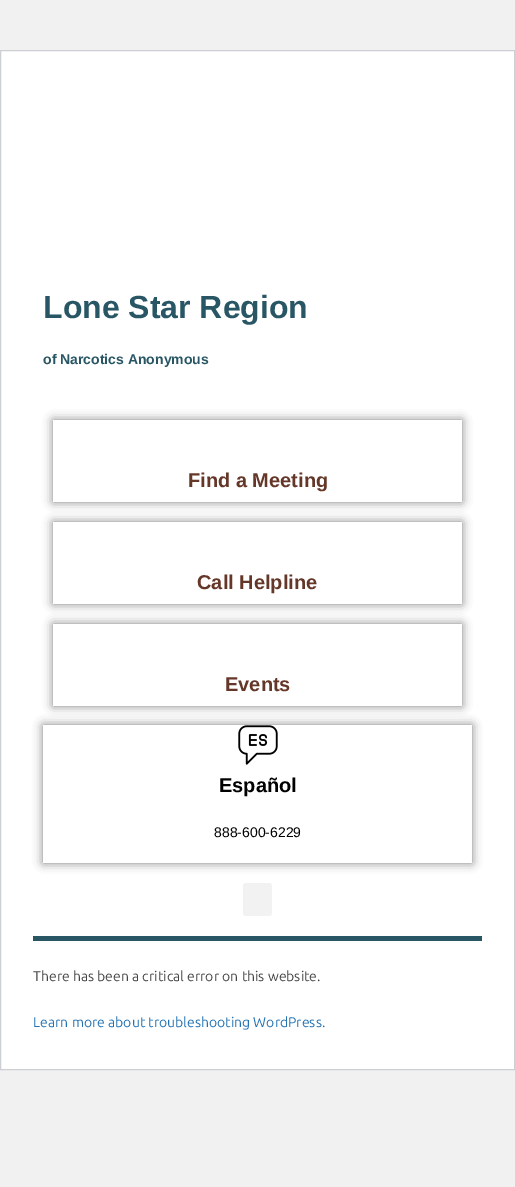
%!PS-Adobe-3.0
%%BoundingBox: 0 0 515 1187
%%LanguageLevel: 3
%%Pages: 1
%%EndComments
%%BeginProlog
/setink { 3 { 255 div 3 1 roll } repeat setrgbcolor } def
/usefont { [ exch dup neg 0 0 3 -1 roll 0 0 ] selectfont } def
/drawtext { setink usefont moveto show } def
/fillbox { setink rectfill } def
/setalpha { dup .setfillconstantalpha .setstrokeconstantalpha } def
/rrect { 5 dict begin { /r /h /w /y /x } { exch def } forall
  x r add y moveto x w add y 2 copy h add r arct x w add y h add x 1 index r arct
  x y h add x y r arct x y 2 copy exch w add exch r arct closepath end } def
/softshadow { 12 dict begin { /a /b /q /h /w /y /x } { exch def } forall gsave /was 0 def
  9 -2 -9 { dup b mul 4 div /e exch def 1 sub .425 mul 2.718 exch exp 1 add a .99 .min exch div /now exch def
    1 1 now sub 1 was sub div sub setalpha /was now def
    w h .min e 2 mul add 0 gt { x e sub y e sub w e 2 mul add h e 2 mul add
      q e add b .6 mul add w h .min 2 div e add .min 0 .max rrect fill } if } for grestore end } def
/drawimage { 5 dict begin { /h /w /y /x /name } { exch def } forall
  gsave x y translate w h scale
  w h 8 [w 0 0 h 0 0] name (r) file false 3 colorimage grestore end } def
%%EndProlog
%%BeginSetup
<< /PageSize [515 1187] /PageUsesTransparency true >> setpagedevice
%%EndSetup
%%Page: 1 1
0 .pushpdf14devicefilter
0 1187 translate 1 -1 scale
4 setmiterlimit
0 0 515 1187 241 241 241 fillbox
255 255 255 setink
0.5 50.5 moveto 514.5 50.5 lineto 514.5 1069.5 lineto 0.5 1069.5 lineto closepath gsave fill grestore
204 208 212 setink
stroke
(Lone Star Region) 43 318 /LiberationSans-Bold 32 40 86 101 drawtext
(of Narcotics Anonymous) 43 364 /LiberationSans-Bold 14 40 86 101 drawtext
gsave
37 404 moveto 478 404 lineto 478 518 lineto 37 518 lineto closepath 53 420 moveto 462 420 lineto 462 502 lineto 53 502 lineto closepath eoclip newpath
0 0 0 setink
53 420 409 82 0 5 0.5 softshadow
grestore
(Find a Meeting) 188 487 /LiberationSans-Bold 20 101 55 40 drawtext
gsave
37 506 moveto 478 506 lineto 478 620 lineto 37 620 lineto closepath 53 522 moveto 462 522 lineto 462 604 lineto 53 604 lineto closepath eoclip newpath
0 0 0 setink
53 522 409 82 0 5 0.5 softshadow
grestore
(Call Helpline) 197 589 /LiberationSans-Bold 20 101 55 40 drawtext
gsave
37 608 moveto 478 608 lineto 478 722 lineto 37 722 lineto closepath 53 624 moveto 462 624 lineto 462 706 lineto 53 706 lineto closepath eoclip newpath
0 0 0 setink
53 624 409 82 0 5 0.5 softshadow
grestore
(Events) 225 691 /LiberationSans-Bold 20 101 55 40 drawtext
gsave
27 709 moveto 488 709 lineto 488 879 lineto 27 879 lineto closepath 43 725 moveto 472 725 lineto 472 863 lineto 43 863 lineto closepath eoclip newpath
0 0 0 setink
43 725 429 138 0 5 0.5 softshadow
grestore
(assets/img1.rgb) 238 725 40 40 drawimage
(Español) 219 792 /LiberationSans-Bold 20 0 0 0 drawtext
(888-600-6229) 214 837 /LiberationSans-Regular 14 0 0 0 drawtext
33 936 449 5 40 86 101 fillbox
242 242 242 setink
243 883 29 33 3 rrect fill
(There has been a critical error on this website.) 33 981 /Ubuntu-Regular 14 68 68 68 drawtext
(Learn more about troubleshooting WordPress.) 33 1027 /Ubuntu-Regular 14 34 113 177 drawtext
.poppdf14devicefilter showpage
%%EOF
